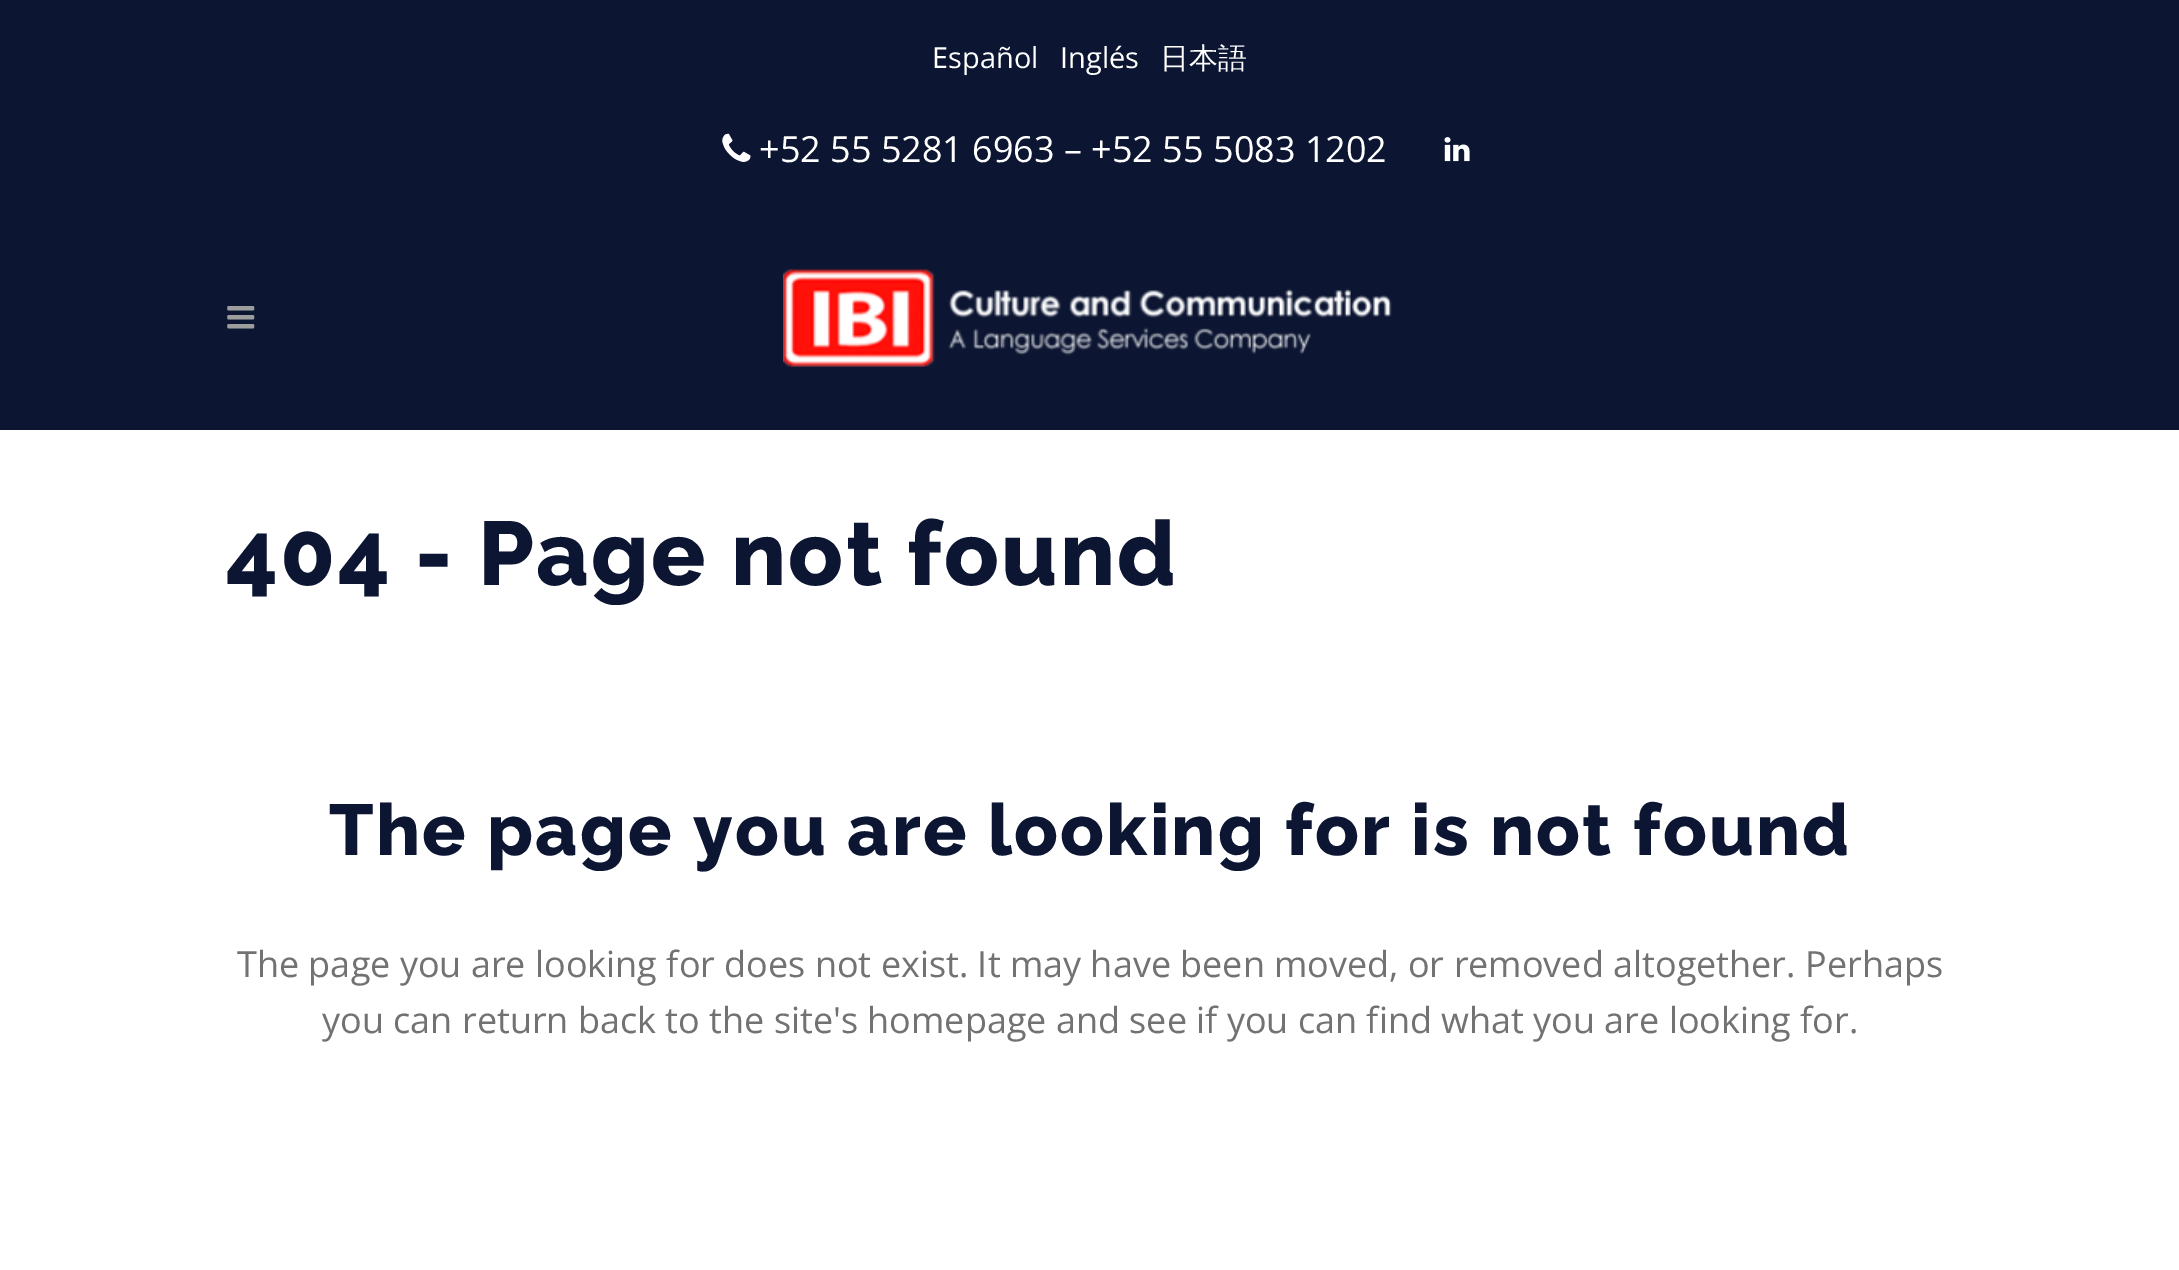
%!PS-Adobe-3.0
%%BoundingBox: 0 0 2179 1270
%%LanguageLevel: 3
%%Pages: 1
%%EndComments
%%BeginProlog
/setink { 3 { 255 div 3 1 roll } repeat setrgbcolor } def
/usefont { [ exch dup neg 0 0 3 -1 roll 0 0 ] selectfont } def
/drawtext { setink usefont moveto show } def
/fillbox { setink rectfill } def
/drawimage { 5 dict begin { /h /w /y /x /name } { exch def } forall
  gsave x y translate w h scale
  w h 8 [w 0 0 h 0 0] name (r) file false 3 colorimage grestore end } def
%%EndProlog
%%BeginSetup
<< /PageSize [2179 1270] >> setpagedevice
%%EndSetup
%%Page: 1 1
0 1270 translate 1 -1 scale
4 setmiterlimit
0 0 2179 1270 255 255 255 fillbox
0 0 2179 430 12 22 50 fillbox
(assets/img1.rgb) 227 306 28 23 drawimage
(assets/img2.rgb) 783 269 609 98 drawimage
(Español) 932 68 /OpenSans-Regular 29 255 255 255 drawtext
(Inglés) 1060 68 /OpenSans-Regular 29 255 255 255 drawtext
(日本語) 1160 68 /WenQuanYiZenHei-Medium 29 255 255 255 drawtext
(assets/img3.rgb) 722 133 29 29 drawimage
(+52 55 5281 6963 – +52 55 5083 1202) 759 162 /OpenSans-Regular 36 255 255 255 drawtext
(assets/img4.rgb) 1444 137 26 25 drawimage
/Raleway-ExtraBold 90 usefont
12 22 50 setink
226 585 moveto 2.25 0 (404 - Page not found) ashow
/Raleway-ExtraBold 72 usefont
329 855 moveto 2.25 0 (The page you are looking for is not found) ashow
(The page you are looking for does not exist. It may have been moved, or removed altogether. Perhaps) 237 977 /OpenSans-Regular 36 114 114 114 drawtext
(you can return back to the site's homepage and see if you can find what you are looking for.) 322 1033 /OpenSans-Regular 36 114 114 114 drawtext
showpage
%%EOF
